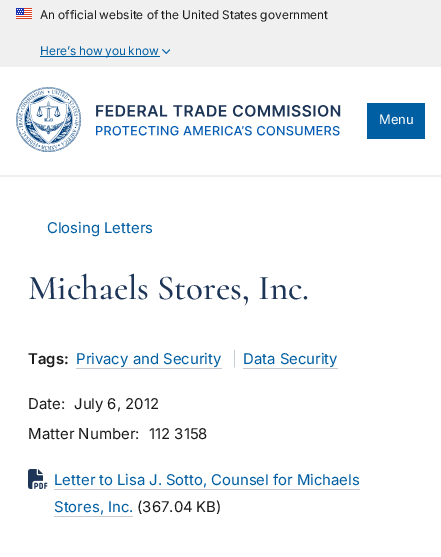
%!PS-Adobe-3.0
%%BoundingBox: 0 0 441 557
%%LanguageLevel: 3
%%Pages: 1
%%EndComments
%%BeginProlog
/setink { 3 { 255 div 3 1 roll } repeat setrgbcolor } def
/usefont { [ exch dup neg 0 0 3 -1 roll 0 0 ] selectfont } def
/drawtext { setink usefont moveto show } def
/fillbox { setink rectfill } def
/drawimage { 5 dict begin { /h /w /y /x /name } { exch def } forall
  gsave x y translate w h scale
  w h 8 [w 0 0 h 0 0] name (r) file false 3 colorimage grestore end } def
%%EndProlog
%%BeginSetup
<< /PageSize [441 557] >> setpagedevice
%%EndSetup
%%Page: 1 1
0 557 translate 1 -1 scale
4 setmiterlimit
0 0 441 557 255 255 255 fillbox
0 0 441 67 240 240 240 fillbox
(assets/img1.rgb) 16 8 16 11 drawimage
/Inter-Regular 11.9 usefont
27 27 27 setink
40 19 moveto -0.25 0 32 (An official website of the United States government) widthshow
40 56 120 1 0 94 162 fillbox
40 55 moveto -1 0 32 (Here’s how you know) widthshow
(assets/img2.rgb) 162 49 8 5 drawimage
(assets/img3.rgb) 16 87 325 65 drawimage
367 103 58 36 0 94 162 fillbox
(Menu) 379 124 /Inter-Regular 13 255 255 255 drawtext
0 175 441 2 240 240 240 fillbox
(Closing Letters) 47 233 /Inter-Regular 14.9 0 94 162 drawtext
/Cormorant-Medium 35 usefont
29 53 87 setink
28 299 moveto -0.25 0 32 (Michaels Stores, Inc.) widthshow
(Tags:) 28 364 /Inter-SemiBold 14.9 27 27 27 drawtext
(Privacy and Security) 76 364 /Inter-Regular 14.9 0 94 162 drawtext
76 368 146 1 198 202 206 fillbox
(|) 232 364 /Inter-Regular 14.9 199 205 213 drawtext
(Data Security) 243 364 /Inter-Regular 14.9 0 94 162 drawtext
243 368 95 1 198 202 206 fillbox
(Date:) 28 409 /Inter-Regular 15 27 27 27 drawtext
(July 6, 2012) 74 409 /Inter-Regular 14.9 27 27 27 drawtext
(Matter Number:) 28 439 /Inter-Regular 15 27 27 27 drawtext
(112 3158) 149 439 /Inter-Regular 14.9 27 27 27 drawtext
(assets/img4.rgb) 28 469 20 20 drawimage
0 94 162 setink
54 485 moveto -0.25 0 32 (Letter to Lisa J. Sotto, Counsel for Michaels) widthshow
54 489 306 1 198 202 206 fillbox
(Stores, Inc.) 54 512 /Inter-Regular 14.9 0 94 162 drawtext
54 516 79 1 198 202 206 fillbox
27 27 27 setink
137 512 moveto -1 0 32 (\(367.04 KB\)) widthshow
showpage
%%EOF
